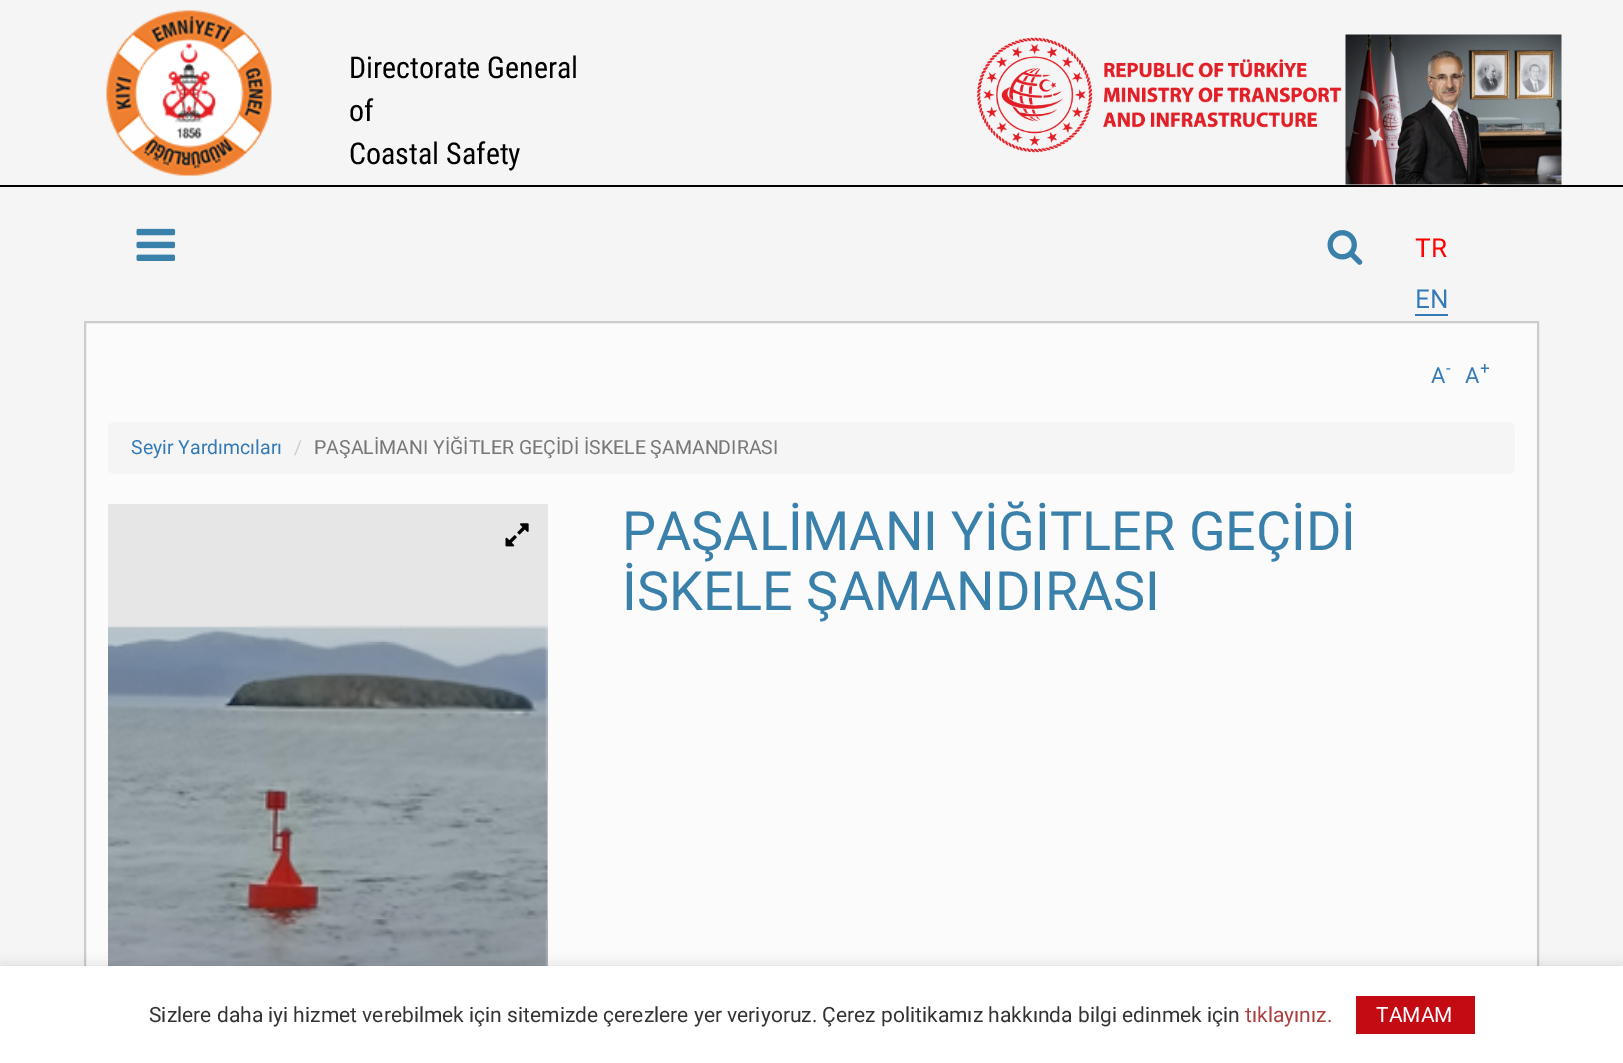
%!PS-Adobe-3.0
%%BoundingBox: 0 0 1623 1063
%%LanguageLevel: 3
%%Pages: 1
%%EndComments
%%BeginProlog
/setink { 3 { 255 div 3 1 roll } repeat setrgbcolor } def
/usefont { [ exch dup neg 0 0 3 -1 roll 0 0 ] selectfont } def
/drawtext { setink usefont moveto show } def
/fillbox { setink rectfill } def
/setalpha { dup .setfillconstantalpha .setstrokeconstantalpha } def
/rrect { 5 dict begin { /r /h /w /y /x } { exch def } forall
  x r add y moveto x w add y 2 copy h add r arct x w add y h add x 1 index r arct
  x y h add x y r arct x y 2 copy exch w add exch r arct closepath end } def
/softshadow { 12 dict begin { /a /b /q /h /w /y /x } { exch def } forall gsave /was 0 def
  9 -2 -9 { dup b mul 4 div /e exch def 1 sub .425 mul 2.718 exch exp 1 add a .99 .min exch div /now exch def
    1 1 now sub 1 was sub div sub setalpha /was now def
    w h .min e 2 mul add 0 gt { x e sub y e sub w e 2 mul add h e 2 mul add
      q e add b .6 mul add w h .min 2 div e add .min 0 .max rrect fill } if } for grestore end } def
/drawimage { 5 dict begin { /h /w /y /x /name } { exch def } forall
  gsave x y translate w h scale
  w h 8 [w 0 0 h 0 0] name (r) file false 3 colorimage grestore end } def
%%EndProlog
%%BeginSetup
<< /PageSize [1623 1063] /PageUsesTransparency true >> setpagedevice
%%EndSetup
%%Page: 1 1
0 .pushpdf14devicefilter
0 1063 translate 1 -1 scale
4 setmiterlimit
0 0 1623 1063 245 245 245 fillbox
0 185 1623 2 0 0 0 fillbox
(assets/img1.rgb) 106 10 166 166 drawimage
(Directorate General) 349 78 /RobotoCondensed-Regular 30 0 0 0 drawtext
(of) 349 121 /RobotoCondensed-Regular 30 0 0 0 drawtext
(Coastal Safety) 349 164 /RobotoCondensed-Regular 30 0 0 0 drawtext
(assets/img2.rgb) 976 37 366 116 drawimage
(assets/img3.rgb) 1345 34 217 151 drawimage
(assets/img4.rgb) 136 228 40 33 drawimage
(assets/img5.rgb) 1327 230 36 35 drawimage
(TR) 1415 257 /Roboto-Regular 26 255 0 0 drawtext
(EN) 1415 308 /Roboto-Regular 26 51 122 183 drawtext
1415 314 33 2 51 122 183 fillbox
86 323 1451 643 251 251 251 fillbox
204 204 204 setink
2 setlinewidth
85 322 1453 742 rectstroke
(A) 1431 383 /Roboto-Regular 22 51 122 183 drawtext
(-) 1446 374 /Roboto-Regular 17 51 122 183 drawtext
(A) 1465 383 /Roboto-Regular 22 51 122 183 drawtext
(+) 1480 374 /Roboto-Regular 17 51 122 183 drawtext
245 245 245 setink
108 422 1407 52 6 rrect fill
(Seyir Yardımcıları) 131 454 /Roboto-Regular 19.5 51 122 183 drawtext
(/) 294 454 /Roboto-Regular 19.5 204 204 204 drawtext
(PAŞALİMANI YİĞİTLER GEÇİDİ İSKELE ŞAMANDIRASI) 314 454 /Roboto-Regular 19.5 119 119 119 drawtext
108 504 440 462 230 230 230 fillbox
(assets/img6.rgb) 505 523 24 24 drawimage
(assets/img7.rgb) 108 626 147 16 drawimage
(assets/img8.rgb) 255 625 146 17 drawimage
(assets/img9.rgb) 400 625 148 19 drawimage
(assets/img10.rgb) 108 642 147 138 drawimage
(assets/img11.rgb) 255 642 146 138 drawimage
(assets/img12.rgb) 401 642 147 138 drawimage
(assets/img13.rgb) 108 780 147 140 drawimage
(assets/img14.rgb) 255 780 146 140 drawimage
(assets/img15.rgb) 401 780 147 141 drawimage
(assets/img16.rgb) 108 920 147 46 drawimage
(assets/img17.rgb) 255 919 147 47 drawimage
(assets/img18.rgb) 401 919 147 47 drawimage
(PAŞALİMANI YİĞİTLER GEÇİDİ) 622 550 /Roboto-Regular 54 57 128 170 drawtext
(İSKELE ŞAMANDIRASI) 622 610 /Roboto-Regular 54 57 128 170 drawtext
0 0 0 setink
0 972 1623 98 0 9 0.3 softshadow
0 966 1623 97 255 255 255 fillbox
(Sizlere daha iyi hizmet verebilmek için sitemizde çerezlere yer veriyoruz. Çerez politikamız hakkında bilgi edinmek için) 149 1022 /Roboto-Regular 21 51 51 51 drawtext
(tıklayınız.) 1245 1022 /Roboto-Regular 21 172 64 62 drawtext
1356 996 119 38 196 11 20 fillbox
(TAMAM) 1376 1022 /Roboto-Regular 21 255 255 255 drawtext
.poppdf14devicefilter showpage
%%EOF
